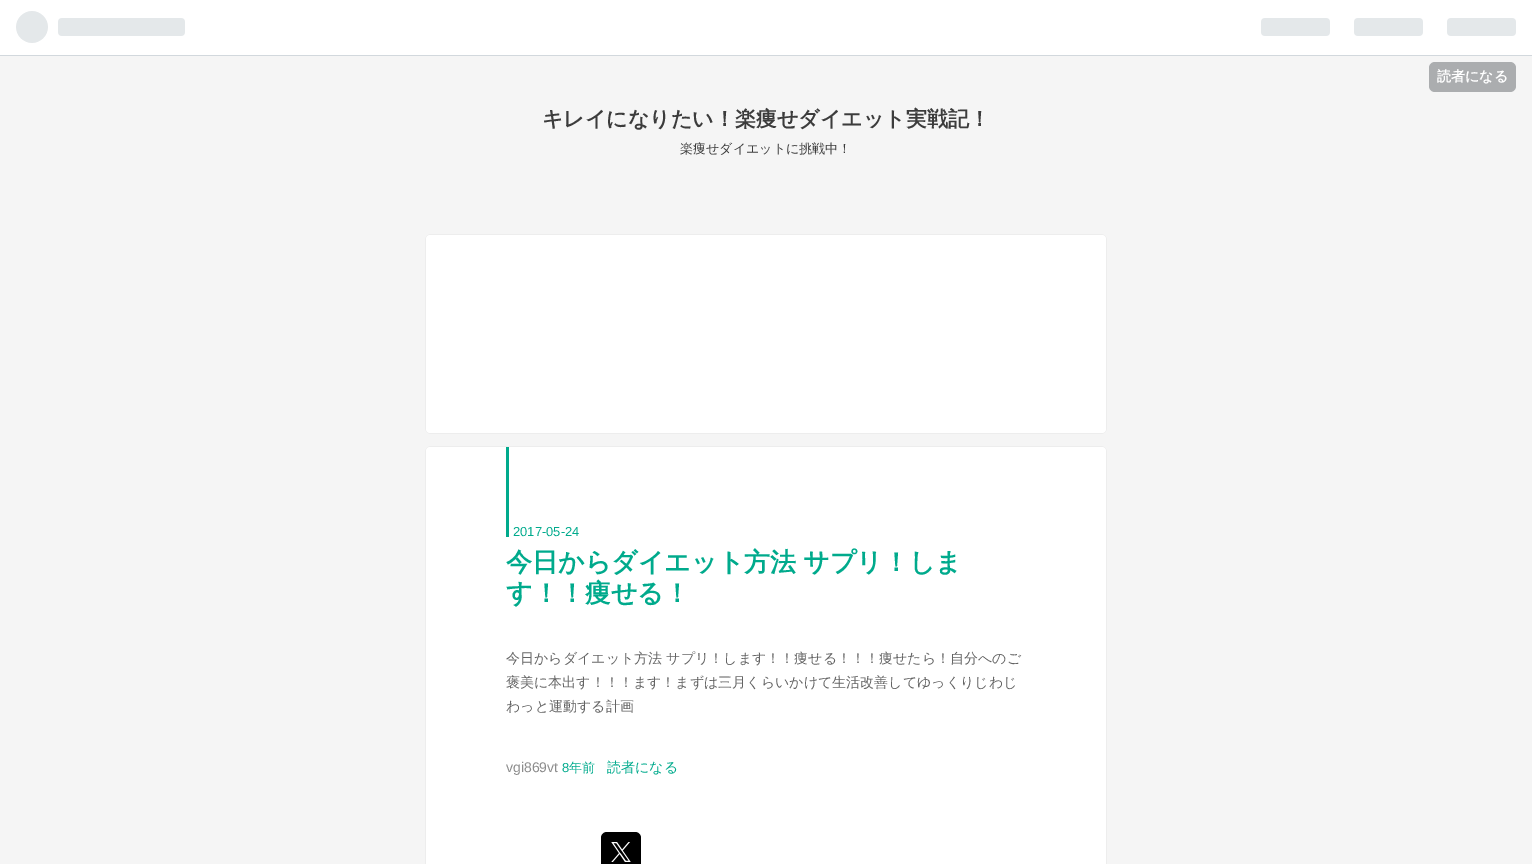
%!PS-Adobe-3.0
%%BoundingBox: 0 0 1532 864
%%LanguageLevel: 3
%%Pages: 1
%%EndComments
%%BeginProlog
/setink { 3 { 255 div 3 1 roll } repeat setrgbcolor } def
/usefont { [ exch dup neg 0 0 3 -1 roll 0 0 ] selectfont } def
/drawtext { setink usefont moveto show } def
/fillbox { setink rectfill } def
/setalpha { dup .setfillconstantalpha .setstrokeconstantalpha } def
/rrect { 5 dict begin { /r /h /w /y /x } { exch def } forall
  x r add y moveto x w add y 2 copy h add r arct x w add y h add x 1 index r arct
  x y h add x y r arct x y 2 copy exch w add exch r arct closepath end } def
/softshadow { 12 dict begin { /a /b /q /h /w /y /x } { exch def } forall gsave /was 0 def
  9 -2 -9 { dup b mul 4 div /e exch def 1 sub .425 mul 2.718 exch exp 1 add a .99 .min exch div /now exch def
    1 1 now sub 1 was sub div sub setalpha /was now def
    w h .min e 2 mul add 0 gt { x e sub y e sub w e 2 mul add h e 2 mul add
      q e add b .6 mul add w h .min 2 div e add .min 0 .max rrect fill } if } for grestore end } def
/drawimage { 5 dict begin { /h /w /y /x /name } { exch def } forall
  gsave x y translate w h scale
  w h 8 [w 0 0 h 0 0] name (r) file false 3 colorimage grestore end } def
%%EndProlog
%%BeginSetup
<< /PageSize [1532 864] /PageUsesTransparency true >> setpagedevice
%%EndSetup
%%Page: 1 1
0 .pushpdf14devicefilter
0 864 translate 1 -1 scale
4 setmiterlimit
0 0 1532 864 245 245 245 fillbox
0 0 1532 55 255 255 255 fillbox
0 55 1532 1 210 216 221 fillbox
(assets/img1.rgb) 16 11 169 32 drawimage
(assets/img2.rgb) 1261 18 255 18 drawimage
171 173 175 setink
1429 62 87 30 6 rrect fill
(読者になる) 1437 81 /WenQuanYiZenHei-Bold 14 255 255 255 drawtext
(キレイになりたい！楽痩せダイエット実戦記！) 542 126 /WenQuanYiZenHei-Bold 21 60 60 60 drawtext
(楽痩せダイエットに挑戦中！) 680 153 /WenQuanYiZenHei-Medium 13 60 60 60 drawtext
217 217 217 setink
426 235 680 198 4 0.5 1 softshadow
255 255 255 setink
426 235 680 198 4 rrect fill
217 217 217 setink
426 447 680 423 4 0.5 1 softshadow
255 255 255 setink
426 447 680 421 4 rrect fill
506 447 3 90 0 170 140 fillbox
(2017-05-24) 513 536 /LiberationSans-Regular 13 0 170 140 drawtext
/WenQuanYiZenHei-Bold 26 usefont
506 571 moveto -1 0 32 (今日からダイエット方法 サプリ！しま) widthshow
(す！！痩せる！) 506 602 /WenQuanYiZenHei-Bold 26 0 170 140 drawtext
(今日からダイエット方法 サプリ！します！！痩せる！！！痩せたら！自分へのご) 506 663 /WenQuanYiZenHei-Medium 14 100 100 100 drawtext
(褒美に本出す！！！ます！まずは三月くらいかけて生活改善してゆっくりじわじ) 506 687 /WenQuanYiZenHei-Medium 14 100 100 100 drawtext
(わっと運動する計画) 506 711 /WenQuanYiZenHei-Medium 14 100 100 100 drawtext
(vgi869vt) 506 772 /LiberationSans-Regular 14 140 140 140 drawtext
(8) 562 772 /LiberationSans-Regular 13 0 170 140 drawtext
(年前) 569 772 /WenQuanYiZenHei-Medium 13 0 170 140 drawtext
(読者になる) 607 772 /WenQuanYiZenHei-Medium 14 0 170 140 drawtext
0 0 0 setink
601 832 40 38 6 rrect fill
(assets/img3.rgb) 611 842 20 20 drawimage
.poppdf14devicefilter showpage
%%EOF
